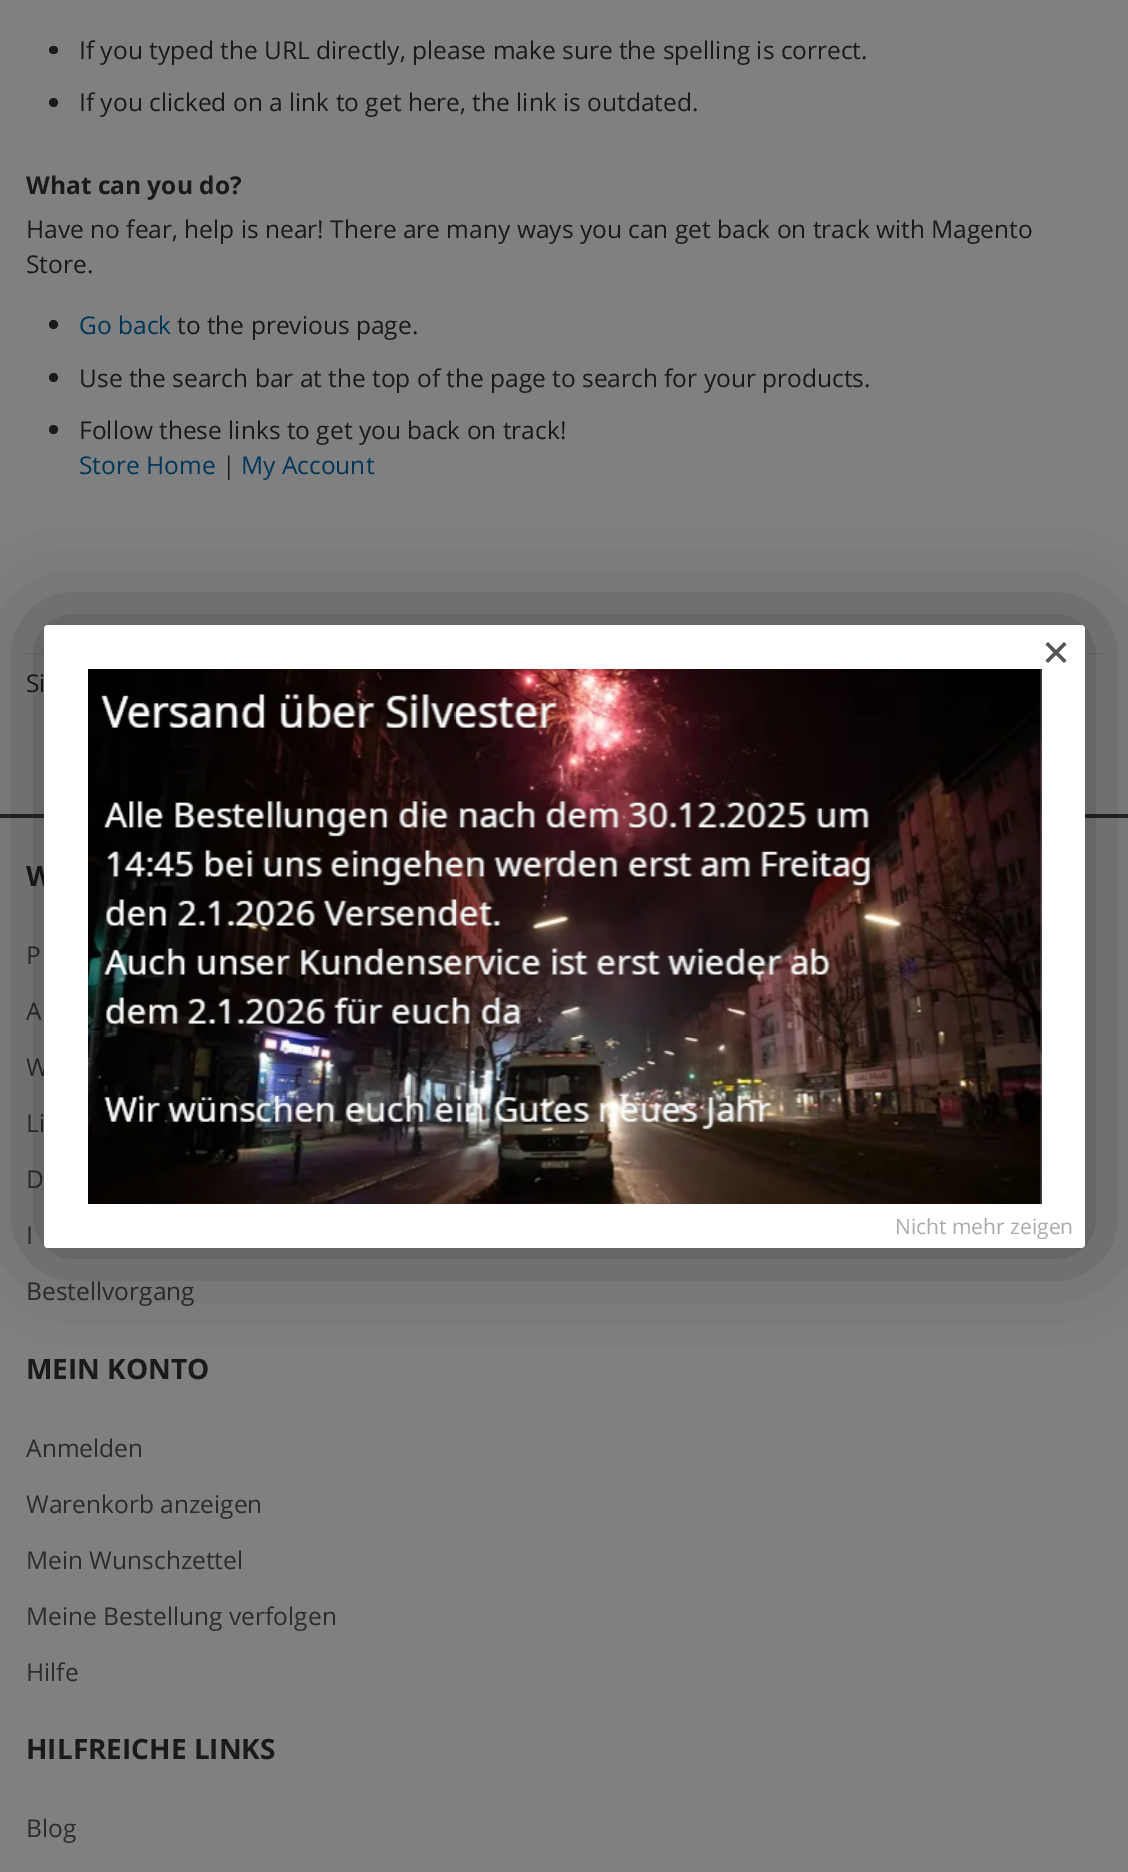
%!PS-Adobe-3.0
%%BoundingBox: 0 0 1128 1872
%%LanguageLevel: 3
%%Pages: 1
%%EndComments
%%BeginProlog
/setink { 3 { 255 div 3 1 roll } repeat setrgbcolor } def
/usefont { [ exch dup neg 0 0 3 -1 roll 0 0 ] selectfont } def
/drawtext { setink usefont moveto show } def
/fillbox { setink rectfill } def
/setalpha { dup .setfillconstantalpha .setstrokeconstantalpha } def
/disc { newpath 0 360 arc closepath } def
/rrect { 5 dict begin { /r /h /w /y /x } { exch def } forall
  x r add y moveto x w add y 2 copy h add r arct x w add y h add x 1 index r arct
  x y h add x y r arct x y 2 copy exch w add exch r arct closepath end } def
/softshadow { 12 dict begin { /a /b /q /h /w /y /x } { exch def } forall gsave /was 0 def
  9 -2 -9 { dup b mul 4 div /e exch def 1 sub .425 mul 2.718 exch exp 1 add a .99 .min exch div /now exch def
    1 1 now sub 1 was sub div sub setalpha /was now def
    w h .min e 2 mul add 0 gt { x e sub y e sub w e 2 mul add h e 2 mul add
      q e add b .6 mul add w h .min 2 div e add .min 0 .max rrect fill } if } for grestore end } def
/drawimage { 5 dict begin { /h /w /y /x /name } { exch def } forall
  gsave x y translate w h scale
  w h 8 [w 0 0 h 0 0] name (r) file false 3 colorimage grestore end } def
%%EndProlog
%%BeginSetup
<< /PageSize [1128 1872] /PageUsesTransparency true >> setpagedevice
%%EndSetup
%%Page: 1 1
0 .pushpdf14devicefilter
0 1872 translate 1 -1 scale
4 setmiterlimit
0 0 1128 1872 128 128 128 fillbox
26 26 26 setink
49 46 9 8 4 rrect fill
(If you typed the URL directly, please make sure the spelling is correct.) 79 59 /OpenSans-Regular 24.5 26 26 26 drawtext
53.5 102.5 4.5 disc fill
(If you clicked on a link to get here, the link is outdated.) 79 111 /OpenSans-Regular 24.5 26 26 26 drawtext
(What can you do?) 26 194 /OpenSans-Bold 24.5 26 26 26 drawtext
(Have no fear, help is near! There are many ways you can get back on track with Magento) 26 238 /OpenSans-Regular 24.5 26 26 26 drawtext
(Store.) 26 273 /OpenSans-Regular 24.5 26 26 26 drawtext
53.5 324.5 4.5 disc fill
(Go back) 79 334 /OpenSans-Regular 24.5 0 54 90 drawtext
(to the previous page.) 177 334 /OpenSans-Regular 24.5 26 26 26 drawtext
53.5 377.5 4.5 disc fill
(Use the search bar at the top of the page to search for your products.) 79 387 /OpenSans-Regular 24.5 26 26 26 drawtext
53.5 429.5 4.5 disc fill
(Follow these links to get you back on track!) 79 439 /OpenSans-Regular 24.5 26 26 26 drawtext
(Store Home) 79 474 /OpenSans-Regular 24.5 0 54 90 drawtext
(|) 222 474 /OpenSans-Regular 24.5 26 26 26 drawtext
(My Account) 241 474 /OpenSans-Regular 24.5 0 54 90 drawtext
26 653 1077 2 119 119 119 fillbox
(Si) 26 692 /OpenSans-Regular 24.5 26 26 26 drawtext
0 814 1128 4 37 37 37 fillbox
(W) 26 886 /OpenSans-Bold 28 26 26 26 drawtext
(P) 26 964 /OpenSans-Regular 24.5 44 44 44 drawtext
(A) 26 1020 /OpenSans-Regular 24.5 44 44 44 drawtext
(W) 26 1076 /OpenSans-Regular 24.5 44 44 44 drawtext
(Li) 26 1132 /OpenSans-Regular 24.5 44 44 44 drawtext
(D) 26 1188 /OpenSans-Regular 24.5 44 44 44 drawtext
(I) 26 1244 /OpenSans-Regular 24.5 44 44 44 drawtext
(Bestellvorgang) 26 1300 /OpenSans-Regular 24.5 44 44 44 drawtext
(MEIN KONTO) 26 1379 /OpenSans-Bold 28 26 26 26 drawtext
(Anmelden) 26 1457 /OpenSans-Regular 24.5 44 44 44 drawtext
(Warenkorb anzeigen) 26 1513 /OpenSans-Regular 24.5 44 44 44 drawtext
(Mein Wunschzettel) 26 1569 /OpenSans-Regular 24.5 44 44 44 drawtext
(Meine Bestellung verfolgen) 26 1625 /OpenSans-Regular 24.5 44 44 44 drawtext
(Hilfe) 26 1681 /OpenSans-Regular 24.5 44 44 44 drawtext
(HILFREICHE LINKS) 26 1759 /OpenSans-Bold 28 26 26 26 drawtext
(Blog) 26 1837 /OpenSans-Regular 24.5 44 44 44 drawtext
0 0 0 setink
44 625 1041 623 4 44 0.4 softshadow
255 255 255 setink
44 625 1041 623 4 rrect fill
85 85 85 setink
1048 642 moveto 1066.5 660.5 lineto 1064 663 lineto 1045.5 644.5 lineto closepath fill
1045.5 660.5 moveto 1064 642 lineto 1066.5 644.5 lineto 1048 663 lineto closepath fill
(assets/img1.rgb) 88 669 954 535 drawimage
(Nicht mehr zeigen) 895 1234 /OpenSans-Regular 21 170 170 170 drawtext
.poppdf14devicefilter showpage
%%EOF
